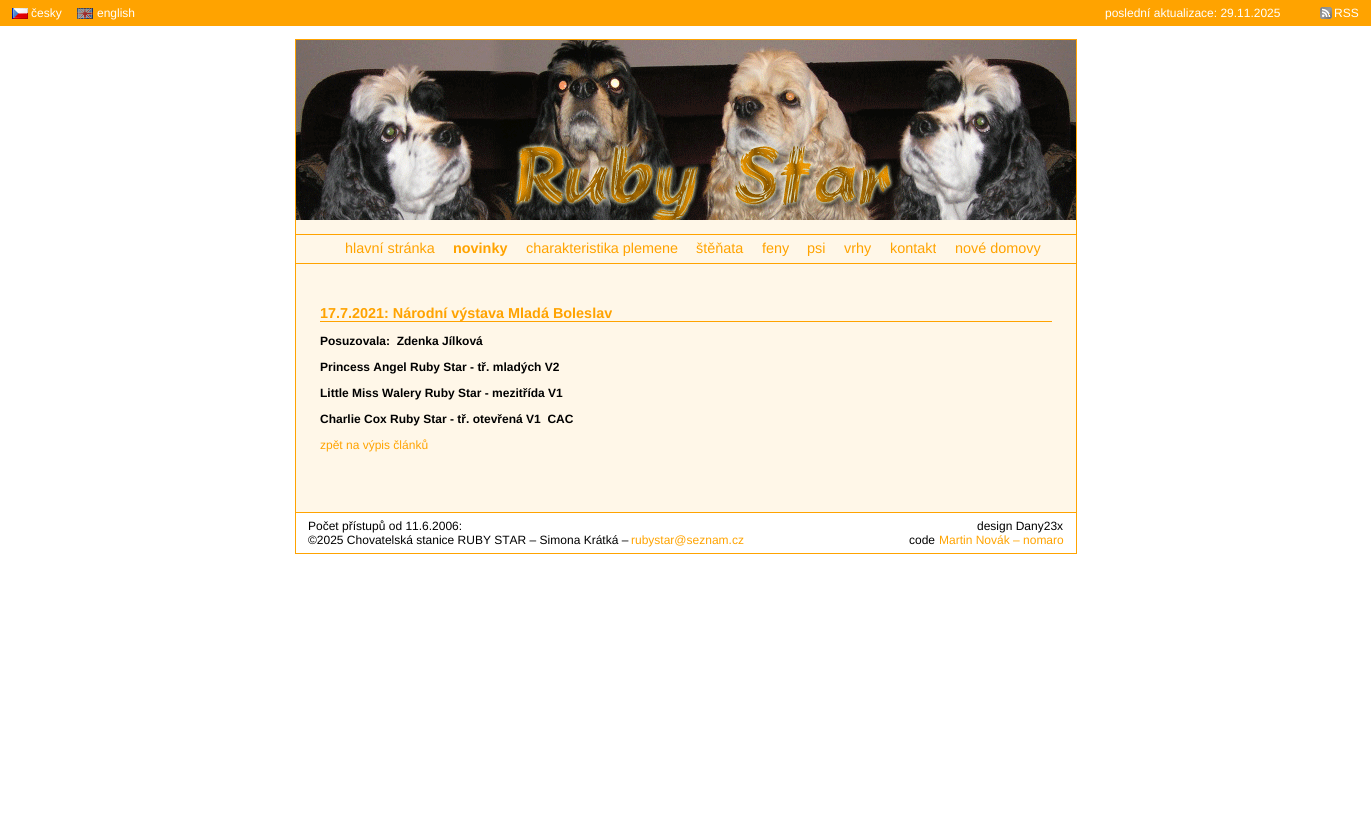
import math
import cairocffi as cairo

surface = cairo.ImageSurface(cairo.FORMAT_RGB24, 1371, 839)
cr = cairo.Context(surface)
options = cairo.FontOptions()
options.set_hint_metrics(cairo.HINT_METRICS_OFF)
options.set_hint_style(cairo.HINT_STYLE_NONE)
cr.set_font_options(options)
cr.set_miter_limit(4)


def use_color(code):
    cr.set_source_rgb(*(v / 255 for v in bytes.fromhex(code[-6:])))


def picture(path, x, y, w, h):
    cr.save()
    cr.set_source_surface(cairo.ImageSurface.create_from_png(path), x, y)
    cr.rectangle(x, y, w, h)
    cr.fill()
    cr.restore()


use_color("#ffffff")
cr.paint()
use_color("#ffa300")
cr.rectangle(0, 0, 1371, 26)
cr.fill()
picture("img1.png", 12, 8, 16, 11)
cr.select_font_face("Liberation Sans")
cr.set_font_size(12)
use_color("#ffffff")
cr.move_to(31, 17)
cr.show_text("česky")
picture("img2.png", 77, 8, 16, 11)
cr.move_to(97, 17)
cr.show_text("english")
cr.move_to(1105, 17)
cr.show_text("poslední aktualizace: 29.11.2025")
picture("img3.png", 1320, 7, 12, 12)
cr.move_to(1334, 17)
cr.show_text("RSS")
use_color("#fff7e8")
cr.rectangle(296, 220, 780, 292)
cr.fill()
cr.rectangle(295.5, 39.5, 781, 514)
use_color("#ffa300")
cr.set_line_width(1)
cr.stroke()
picture("img4.png", 296, 40, 780, 180)
cr.rectangle(296, 234, 780, 1)
cr.fill()
cr.rectangle(296, 263, 780, 1)
cr.fill()
cr.set_font_size(14.4)
cr.move_to(345, 253)
cr.show_text("hlavní stránka")
cr.select_font_face("Liberation Sans", cairo.FONT_SLANT_NORMAL, cairo.FONT_WEIGHT_BOLD)
cr.move_to(453, 253)
cr.show_text("novinky")
cr.select_font_face("Liberation Sans")
cr.move_to(526, 253)
cr.show_text("charakteristika plemene")
cr.move_to(696, 253)
cr.show_text("štěňata")
cr.move_to(762, 253)
cr.show_text("feny")
cr.move_to(807, 253)
cr.show_text("psi")
cr.move_to(844, 253)
cr.show_text("vrhy")
cr.move_to(890, 253)
cr.show_text("kontakt")
cr.move_to(955, 253)
cr.show_text("nové domovy")
cr.rectangle(320, 321, 732, 1)
cr.fill()
cr.select_font_face("Liberation Sans", cairo.FONT_SLANT_NORMAL, cairo.FONT_WEIGHT_BOLD)
cr.move_to(320, 318)
cr.show_text("17.7.2021: Národní výstava Mladá Boleslav")
cr.set_font_size(12)
use_color("#000000")
cr.move_to(320, 345)
cr.show_text("Posuzovala:  Zdenka Jílková")
cr.move_to(320, 371)
cr.show_text("Princess Angel Ruby Star - tř. mladých V2")
cr.move_to(320, 397)
cr.show_text("Little Miss Walery Ruby Star - mezitřída V1")
cr.move_to(320, 423)
cr.show_text("Charlie Cox Ruby Star - tř. otevřená V1  CAC")
cr.select_font_face("Liberation Sans")
use_color("#ffa300")
cr.move_to(320, 449)
cr.show_text("zpět na výpis článků")
cr.rectangle(296, 512, 780, 1)
cr.fill()
use_color("#000000")
cr.move_to(308, 530)
cr.show_text("Počet přístupů od 11.6.2006:")
cr.move_to(977, 530)
cr.show_text("design Dany23x")
cr.move_to(909, 544)
cr.show_text("code")
use_color("#ffa300")
cr.move_to(939, 544)
cr.show_text("Martin Novák – nomaro")
use_color("#000000")
cr.move_to(308, 544)
cr.show_text("©2025 Chovatelská stanice RUBY STAR – Simona Krátká –")
use_color("#ffa300")
cr.move_to(631, 544)
cr.show_text("rubystar@seznam.cz")
surface.write_to_png("result.png")
